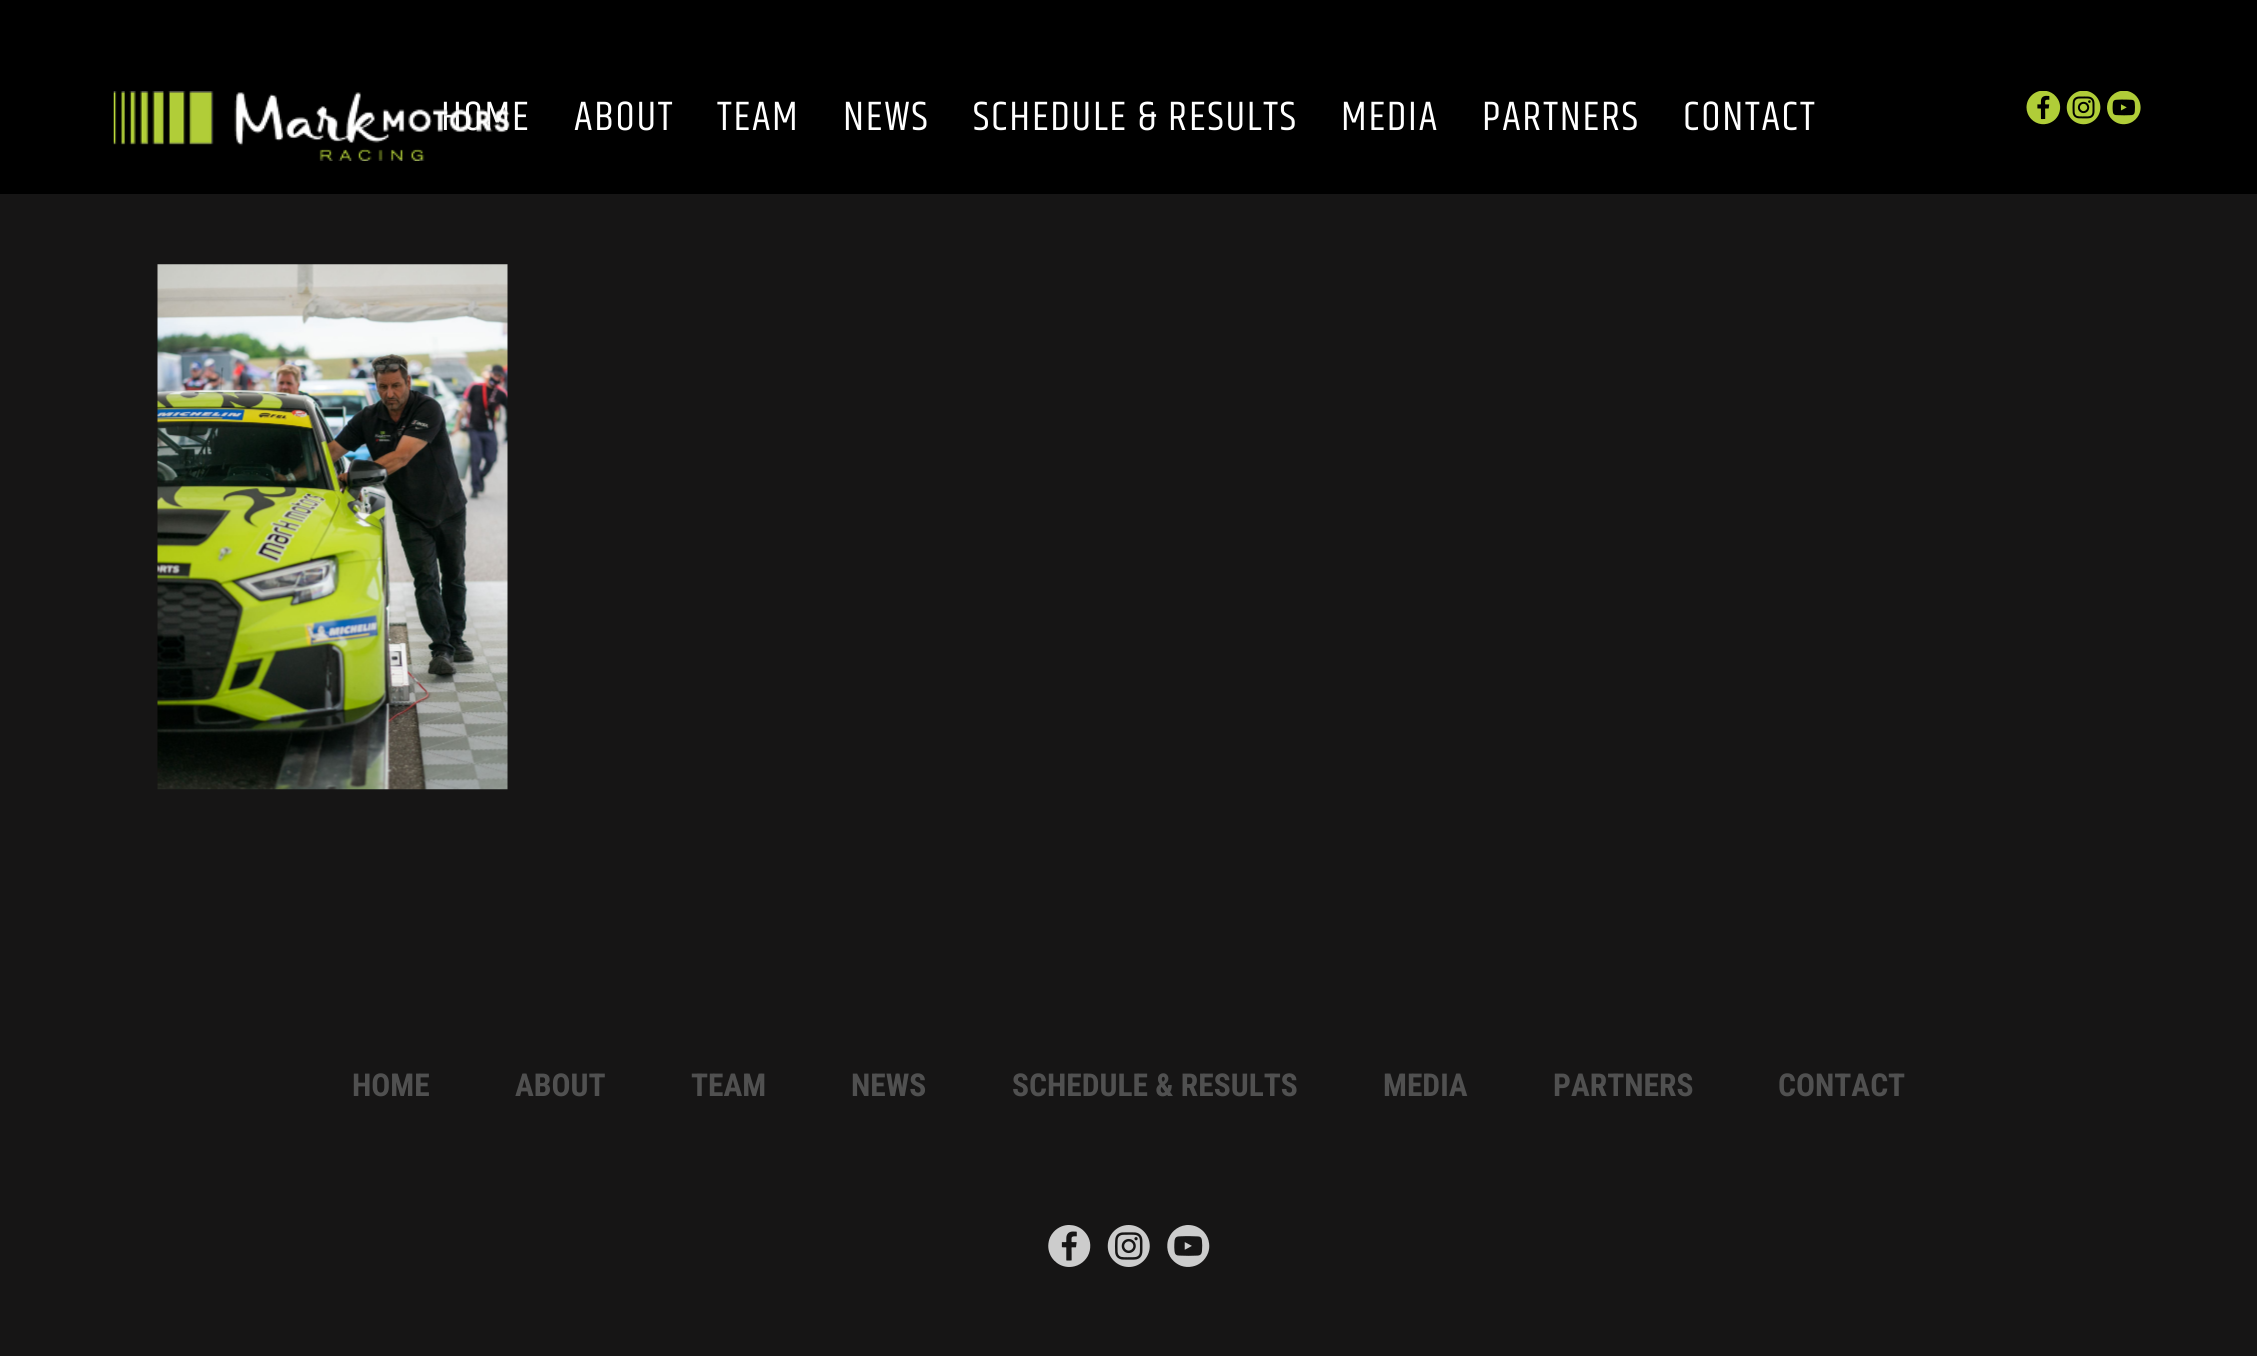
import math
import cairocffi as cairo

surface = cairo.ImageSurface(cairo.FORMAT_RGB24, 2257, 1356)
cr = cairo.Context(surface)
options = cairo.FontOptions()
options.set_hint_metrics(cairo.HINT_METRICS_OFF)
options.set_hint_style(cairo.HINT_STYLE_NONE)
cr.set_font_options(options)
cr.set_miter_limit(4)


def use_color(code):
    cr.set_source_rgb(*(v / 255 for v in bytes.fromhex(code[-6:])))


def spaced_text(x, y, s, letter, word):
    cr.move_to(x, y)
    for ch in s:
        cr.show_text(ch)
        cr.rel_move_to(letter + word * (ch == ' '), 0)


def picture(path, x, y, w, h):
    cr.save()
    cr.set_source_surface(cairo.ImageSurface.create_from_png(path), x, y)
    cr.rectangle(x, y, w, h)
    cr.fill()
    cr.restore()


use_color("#161515")
cr.paint()
use_color("#000000")
cr.rectangle(0, 0, 2257, 194)
cr.fill()
cr.select_font_face("Khand")
cr.set_font_size(42)
use_color("#ffffff")
spaced_text(441, 130, "HOME", 1.75, 0)
picture("img1.png", 113, 91, 397, 70)
spaced_text(574, 130, "ABOUT", 1.75, 0)
spaced_text(717, 130, "TEAM", 1.75, 0)
spaced_text(843, 130, "NEWS", 1.75, 0)
spaced_text(973, 130, "SCHEDULE & RESULTS", 1.75, 0)
spaced_text(1341, 130, "MEDIA", 1.75, 0)
spaced_text(1482, 130, "PARTNERS", 1.75, 0)
spaced_text(1683, 130, "CONTACT", 1.75, 0)
picture("img2.png", 2026, 91, 35, 34)
picture("img3.png", 2066, 91, 35, 34)
picture("img4.png", 2107, 91, 34, 34)
picture("img5.png", 157, 264, 351, 526)
cr.select_font_face("Roboto Condensed", cairo.FONT_SLANT_NORMAL, cairo.FONT_WEIGHT_BOLD)
cr.set_font_size(31.5)
use_color("#505050")
cr.move_to(352, 1096)
cr.show_text("HOME")
cr.move_to(515, 1096)
cr.show_text("ABOUT")
cr.move_to(691, 1096)
cr.show_text("TEAM")
cr.move_to(851, 1096)
cr.show_text("NEWS")
cr.move_to(1012, 1096)
cr.show_text("SCHEDULE & RESULTS")
cr.move_to(1383, 1096)
cr.show_text("MEDIA")
cr.move_to(1553, 1096)
cr.show_text("PARTNERS")
cr.move_to(1778, 1096)
cr.show_text("CONTACT")
picture("img6.png", 1048, 1225, 43, 42)
picture("img7.png", 1107, 1225, 43, 42)
picture("img8.png", 1167, 1225, 43, 42)
surface.write_to_png("result.png")
